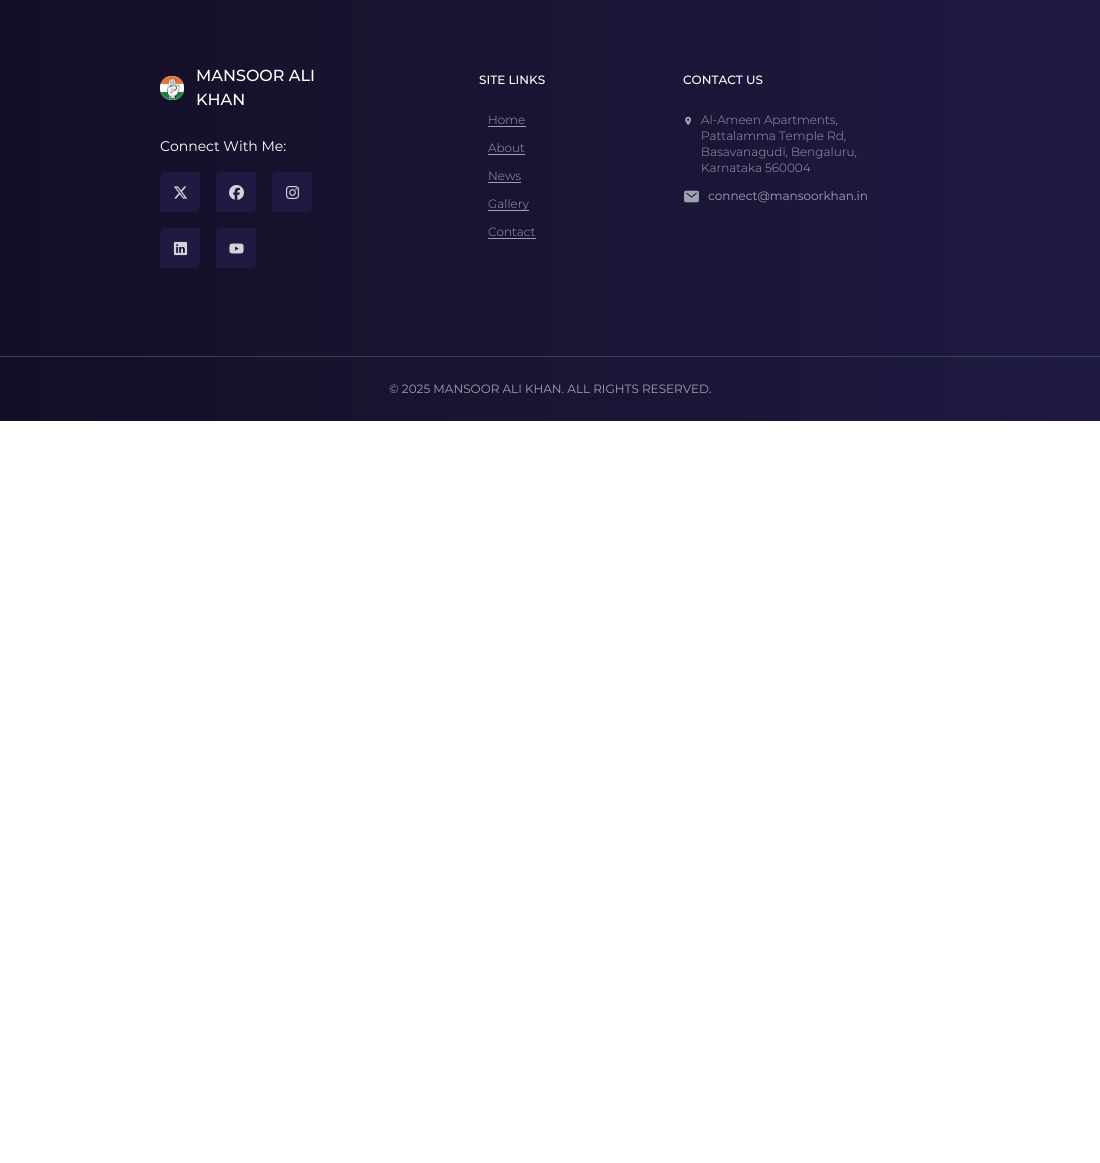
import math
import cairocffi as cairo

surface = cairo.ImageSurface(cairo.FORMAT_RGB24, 1100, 1163)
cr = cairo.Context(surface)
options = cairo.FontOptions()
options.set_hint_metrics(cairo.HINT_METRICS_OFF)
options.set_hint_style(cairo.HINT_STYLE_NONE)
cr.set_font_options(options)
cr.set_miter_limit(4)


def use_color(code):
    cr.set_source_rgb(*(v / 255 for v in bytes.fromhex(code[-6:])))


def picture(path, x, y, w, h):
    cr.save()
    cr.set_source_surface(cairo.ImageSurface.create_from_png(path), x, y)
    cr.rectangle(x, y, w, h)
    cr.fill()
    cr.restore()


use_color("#ffffff")
cr.paint()
gradient = cairo.LinearGradient(0, 211, 1100, 210)
gradient.add_color_stop_rgba(0, 0.078, 0.059, 0.149, 1)
gradient.add_color_stop_rgba(1, 0.122, 0.102, 0.259, 1)
cr.set_source(gradient)
cr.rectangle(0, 0, 1100, 421)
cr.fill()
picture("img1.png", 160, 76, 24, 24)
cr.select_font_face("Montserrat Medium")
cr.set_font_size(16)
use_color("#ffffff")
cr.move_to(196, 81)
cr.show_text("MANSOOR ALI")
cr.move_to(196, 105)
cr.show_text("KHAN")
cr.select_font_face("Montserrat")
cr.set_font_size(14)
cr.move_to(160, 151)
cr.show_text("Connect With Me:")
use_color("#1f1a42")
cr.new_path()
cr.move_to(166, 172)
cr.line_to(200, 172)
cr.line_to(200, 206)
cr.curve_to(200, 209.5, 197.5, 212, 194, 212)
cr.line_to(160, 212)
cr.line_to(160, 178)
cr.curve_to(160, 174.5, 162.5, 172, 166, 172)
cr.close_path()
cr.fill()
picture("img2.png", 173, 186, 15, 13)
cr.new_path()
cr.move_to(222, 172)
cr.line_to(256, 172)
cr.line_to(256, 206)
cr.curve_to(256, 209.5, 253.5, 212, 250, 212)
cr.line_to(216, 212)
cr.line_to(216, 178)
cr.curve_to(216, 174.5, 218.5, 172, 222, 172)
cr.close_path()
cr.fill()
picture("img3.png", 229, 185, 15, 15)
cr.new_path()
cr.move_to(278, 172)
cr.line_to(312, 172)
cr.line_to(312, 206)
cr.curve_to(312, 209.5, 309.5, 212, 306, 212)
cr.line_to(272, 212)
cr.line_to(272, 178)
cr.curve_to(272, 174.5, 274.5, 172, 278, 172)
cr.close_path()
cr.fill()
picture("img4.png", 286, 186, 14, 13)
cr.new_path()
cr.move_to(166, 228)
cr.line_to(200, 228)
cr.line_to(200, 262)
cr.curve_to(200, 265.5, 197.5, 268, 194, 268)
cr.line_to(160, 268)
cr.line_to(160, 234)
cr.curve_to(160, 230.5, 162.5, 228, 166, 228)
cr.close_path()
cr.fill()
picture("img5.png", 173, 241, 15, 15)
cr.new_path()
cr.move_to(222, 228)
cr.line_to(256, 228)
cr.line_to(256, 262)
cr.curve_to(256, 265.5, 253.5, 268, 250, 268)
cr.line_to(216, 268)
cr.line_to(216, 234)
cr.curve_to(216, 230.5, 218.5, 228, 222, 228)
cr.close_path()
cr.fill()
picture("img6.png", 229, 243, 15, 11)
cr.select_font_face("Montserrat Medium")
cr.set_font_size(12)
use_color("#ffffff")
cr.move_to(479, 84)
cr.show_text("SITE LINKS")
cr.select_font_face("Montserrat Light")
use_color("#9ca3af")
cr.move_to(488, 124)
cr.show_text("Home")
cr.rectangle(488, 126, 38, 1)
cr.fill()
cr.move_to(488, 152)
cr.show_text("About")
cr.rectangle(488, 154, 37, 1)
cr.fill()
cr.move_to(488, 180)
cr.show_text("News")
cr.rectangle(488, 182, 33, 1)
cr.fill()
cr.rectangle(488, 210, 41, 1)
cr.fill()
cr.move_to(488, 208)
cr.show_text("Gallery")
cr.move_to(488, 236)
cr.show_text("Contact")
cr.rectangle(488, 238, 48, 1)
cr.fill()
cr.select_font_face("Montserrat Medium")
use_color("#ffffff")
cr.move_to(683, 84)
cr.show_text("CONTACT US")
picture("img7.png", 685, 116, 7, 10)
cr.select_font_face("Montserrat Light")
use_color("#9ca3af")
cr.move_to(701, 124)
cr.show_text("Al-Ameen Apartments,")
cr.move_to(701, 140)
cr.show_text("Pattalamma Temple Rd,")
cr.move_to(701, 156)
cr.show_text("Basavanagudi, Bengaluru,")
cr.move_to(701, 172)
cr.show_text("Karnataka 560004")
picture("img8.png", 684, 190, 15, 13)
cr.select_font_face("Montserrat")
cr.move_to(708, 200)
cr.show_text("connect@mansoorkhan.in")
use_color("#374151")
cr.rectangle(0, 356, 1100, 1)
cr.fill()
use_color("#9ca3af")
cr.move_to(389, 393)
cr.show_text("© 2025 MANSOOR ALI KHAN. ALL RIGHTS RESERVED.")
surface.write_to_png("result.png")
